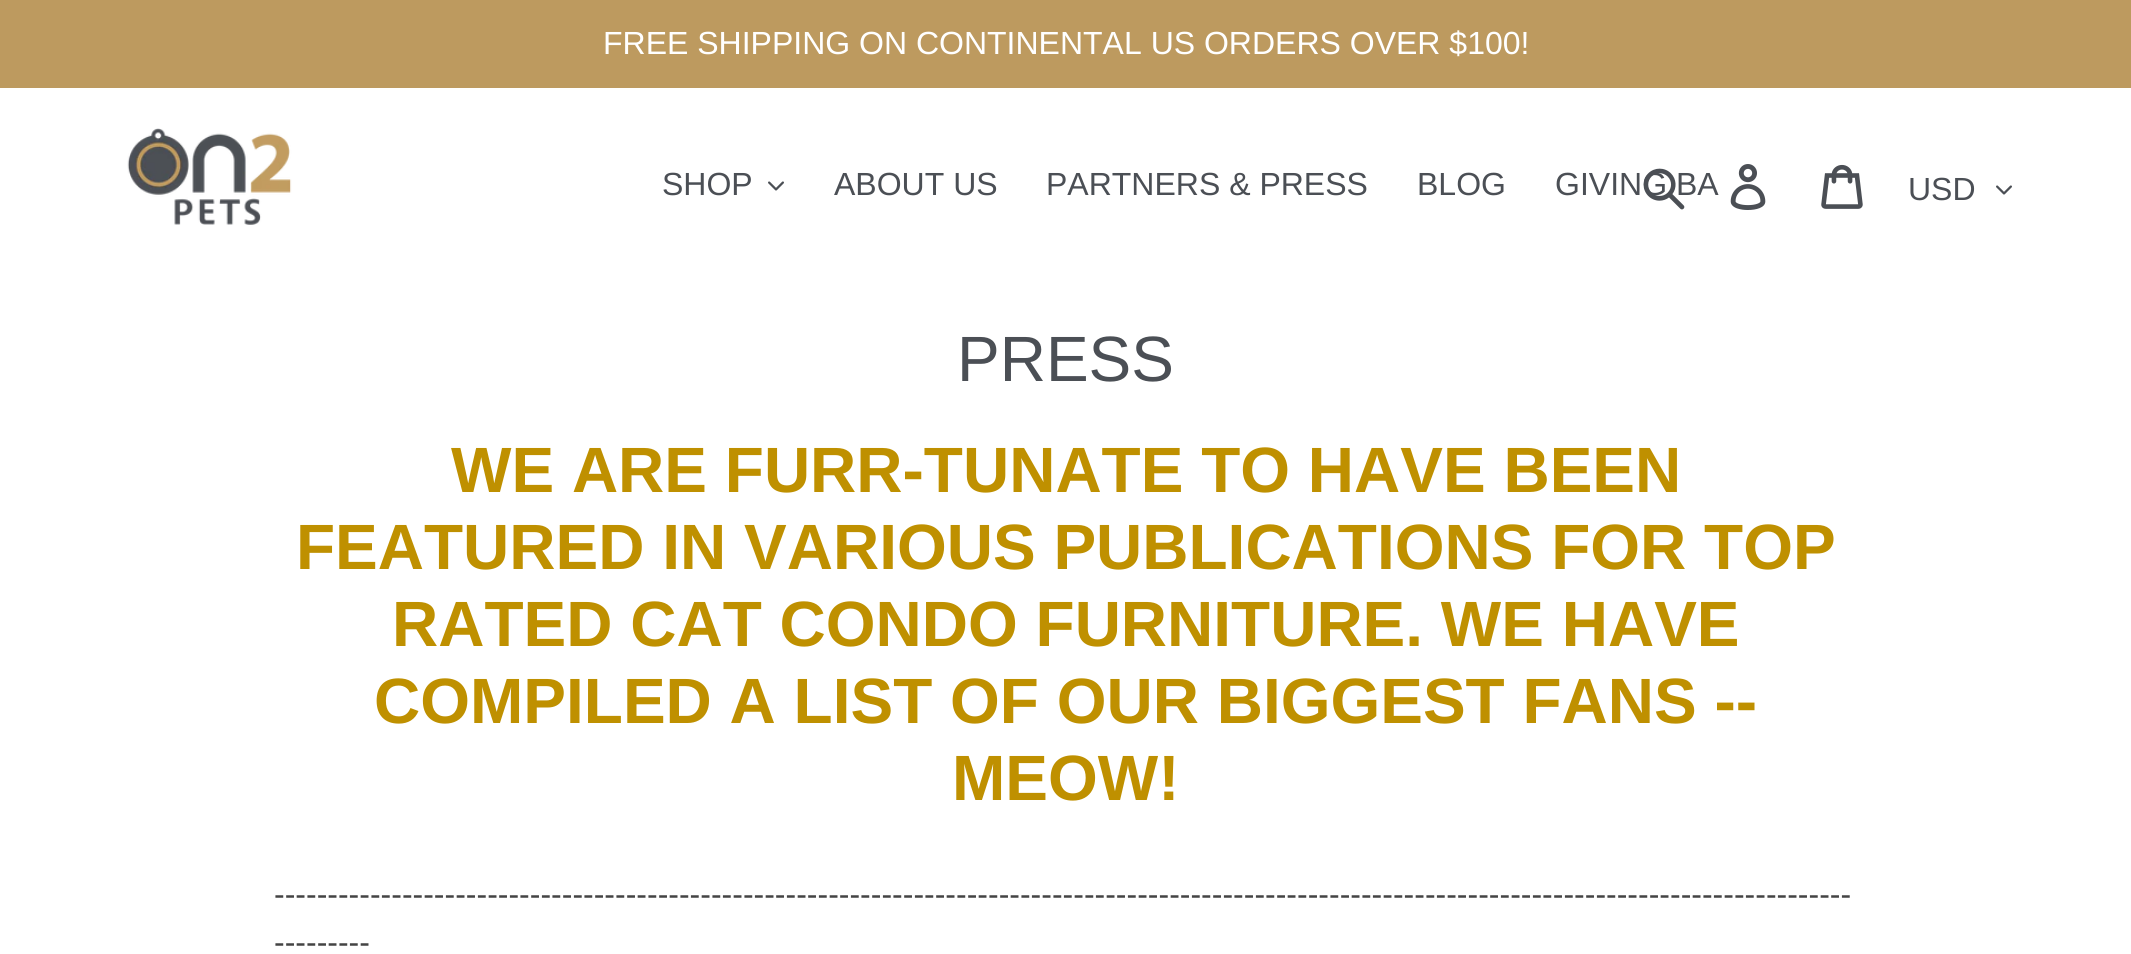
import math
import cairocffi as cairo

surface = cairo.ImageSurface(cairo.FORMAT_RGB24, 2131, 954)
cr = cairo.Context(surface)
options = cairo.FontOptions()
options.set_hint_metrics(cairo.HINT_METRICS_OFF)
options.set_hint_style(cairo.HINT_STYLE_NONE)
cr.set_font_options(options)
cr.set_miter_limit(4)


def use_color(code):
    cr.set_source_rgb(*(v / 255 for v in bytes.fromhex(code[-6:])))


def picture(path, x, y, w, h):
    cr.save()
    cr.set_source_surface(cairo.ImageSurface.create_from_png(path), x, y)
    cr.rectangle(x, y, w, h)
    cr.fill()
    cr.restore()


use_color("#ffffff")
cr.paint()
use_color("#bd9a5f")
cr.rectangle(0, 0, 2131, 88)
cr.fill()
cr.select_font_face("Liberation Sans")
cr.set_font_size(32)
use_color("#ffffff")
cr.move_to(603, 54)
cr.show_text("FREE SHIPPING ON CONTINENTAL US ORDERS OVER $100!")
picture("img1.png", 127, 128, 165, 97)
use_color("#4b4f55")
cr.move_to(662, 195)
cr.show_text("SHOP")
picture("img2.png", 768, 181, 16, 10)
cr.move_to(834, 195)
cr.show_text("ABOUT US")
cr.move_to(1046, 195)
cr.show_text("PARTNERS & PRESS")
cr.move_to(1417, 195)
cr.show_text("BLOG")
cr.move_to(1555, 195)
cr.show_text("GIVING BA")
picture("img3.png", 1643, 168, 42, 42)
picture("img4.png", 1730, 164, 36, 46)
picture("img5.png", 1821, 164, 42, 45)
cr.move_to(1908, 200)
cr.show_text("USD")
picture("img2.png", 1996, 185, 16, 10)
cr.set_font_size(64)
cr.move_to(957, 381)
cr.show_text("PRESS")
cr.select_font_face("Liberation Sans", cairo.FONT_SLANT_NORMAL, cairo.FONT_WEIGHT_BOLD)
use_color("#bf9000")
cr.move_to(451, 492)
cr.show_text("WE ARE FURR-TUNATE TO HAVE BEEN")
cr.move_to(296, 569)
cr.show_text("FEATURED IN VARIOUS PUBLICATIONS FOR TOP")
cr.move_to(392, 646)
cr.show_text("RATED CAT CONDO FURNITURE. WE HAVE")
cr.move_to(374, 723)
cr.show_text("COMPILED A LIST OF OUR BIGGEST FANS --")
cr.move_to(952, 800)
cr.show_text("MEOW!")
cr.select_font_face("Liberation Sans")
cr.set_font_size(32)
use_color("#444444")
cr.move_to(274, 905)
cr.show_text("----------------------------------------------------------------------------------------------------------------------------------------------------")
cr.move_to(274, 953)
cr.show_text("---------")
surface.write_to_png("result.png")
